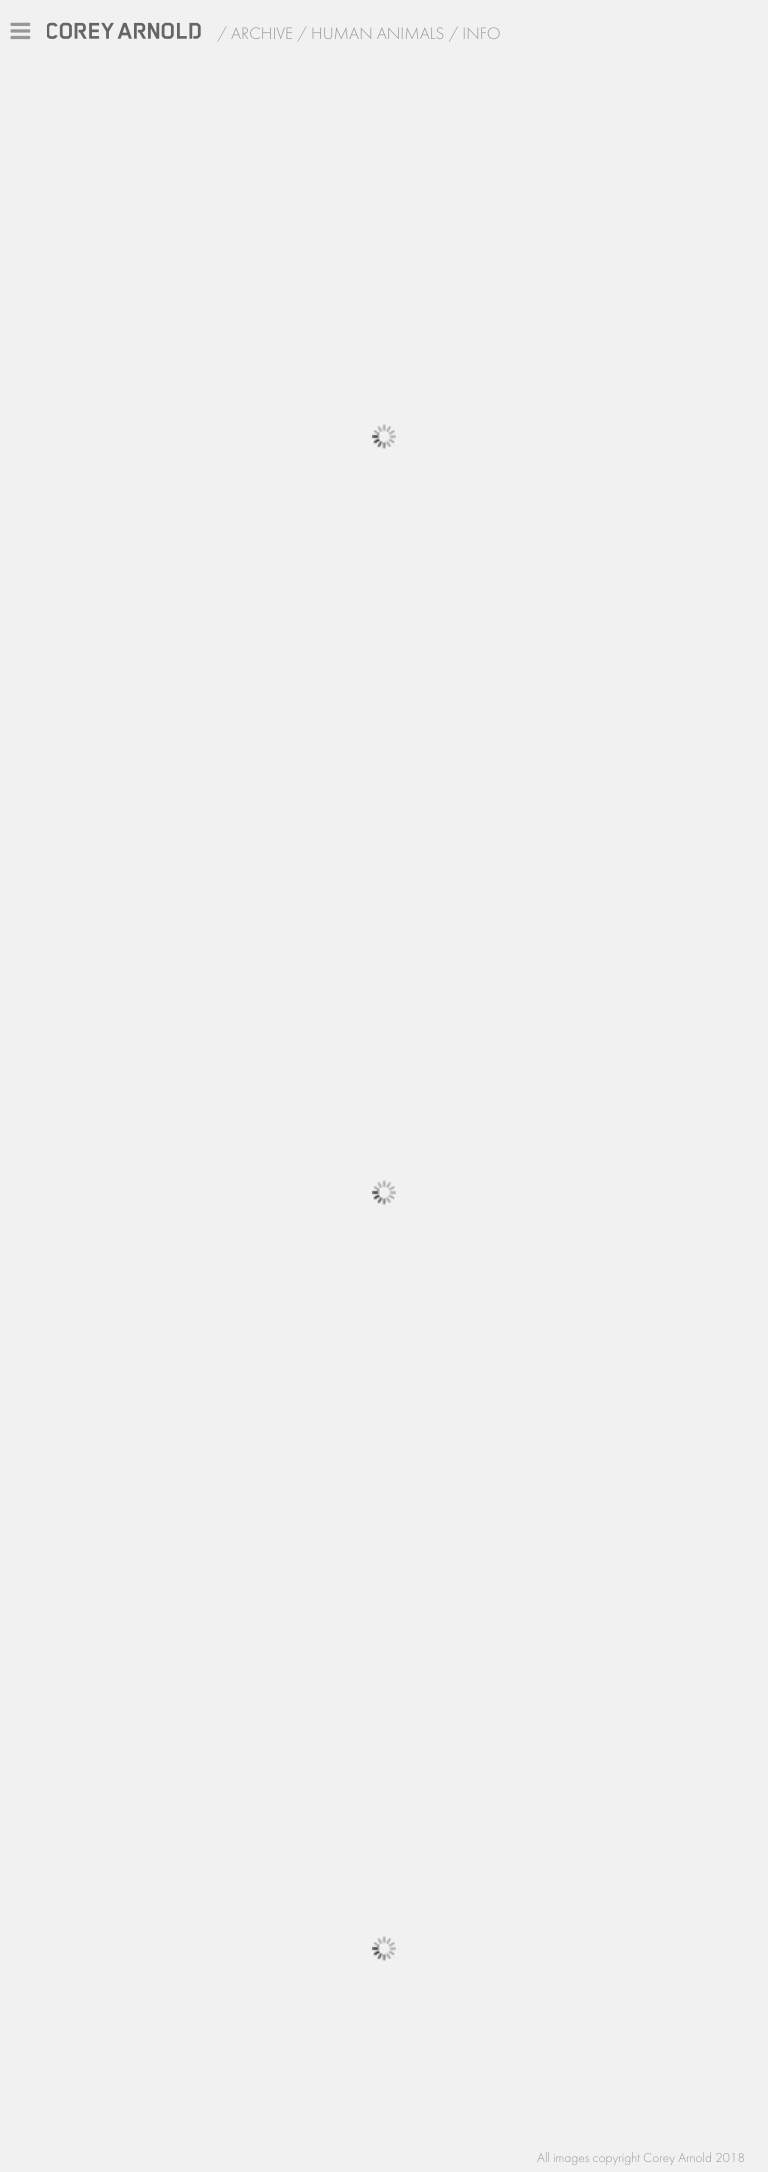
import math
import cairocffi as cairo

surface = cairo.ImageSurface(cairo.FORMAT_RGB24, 768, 2172)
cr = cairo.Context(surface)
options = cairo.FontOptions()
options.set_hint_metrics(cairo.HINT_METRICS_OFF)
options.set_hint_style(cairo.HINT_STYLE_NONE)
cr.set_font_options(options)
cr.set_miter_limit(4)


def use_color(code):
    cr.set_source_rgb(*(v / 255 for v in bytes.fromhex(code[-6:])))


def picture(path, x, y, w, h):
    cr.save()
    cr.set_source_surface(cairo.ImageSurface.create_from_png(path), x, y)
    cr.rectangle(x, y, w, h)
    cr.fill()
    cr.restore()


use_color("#f1f1f1")
cr.paint()
picture("img1.png", 10, 22, 21, 18)
picture("img2.png", 47, 22, 154, 17)
cr.select_font_face("Futura PT Light")
cr.set_font_size(17.25)
use_color("#979797")
cr.move_to(217, 39)
cr.show_text("/ ARCHIVE / HUMAN ANIMALS / INFO")
picture("img3.png", 372, 424, 24, 25)
picture("img3.png", 372, 1180, 24, 25)
picture("img3.png", 372, 1936, 24, 25)
cr.set_font_size(13.5)
cr.move_to(537, 2162)
cr.show_text("All images copyright Corey Arnold 2018")
surface.write_to_png("result.png")
